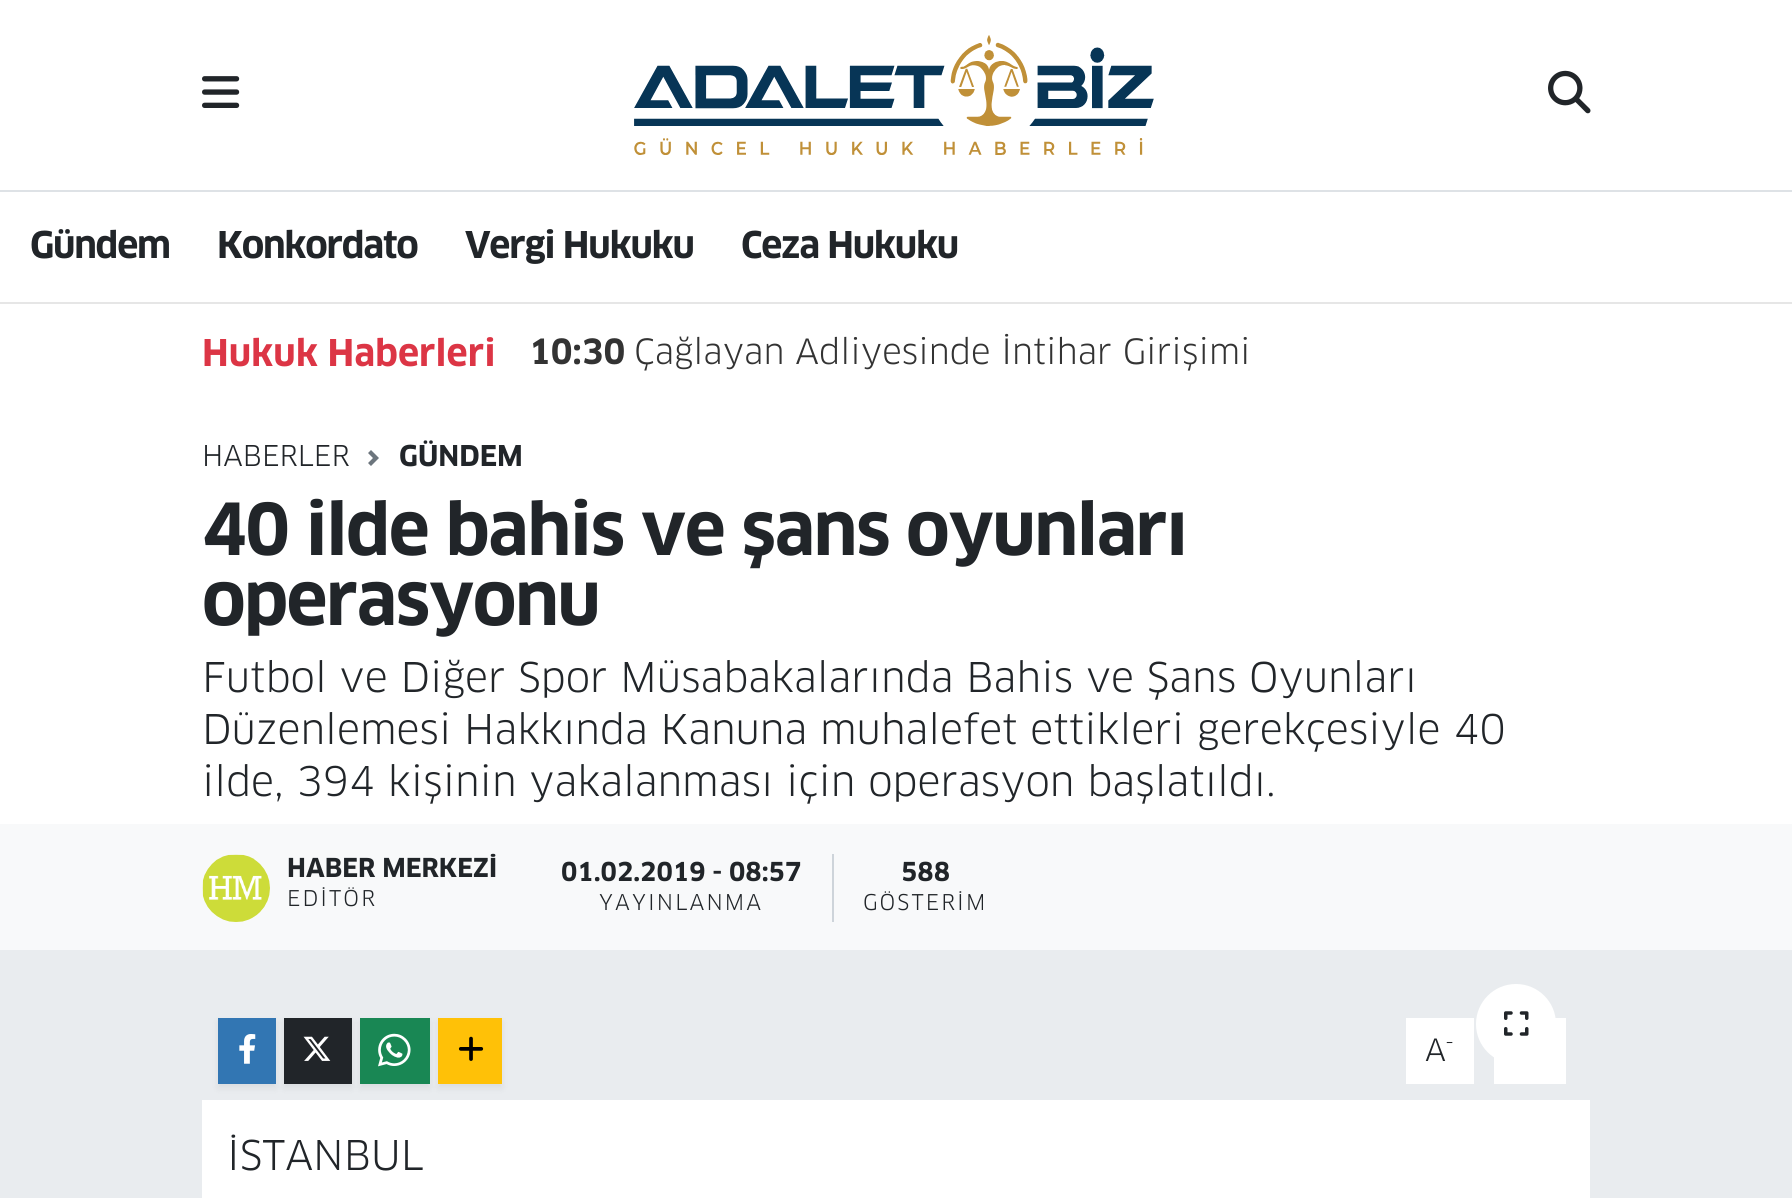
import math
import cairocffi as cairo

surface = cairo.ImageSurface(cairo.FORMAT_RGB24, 1792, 1198)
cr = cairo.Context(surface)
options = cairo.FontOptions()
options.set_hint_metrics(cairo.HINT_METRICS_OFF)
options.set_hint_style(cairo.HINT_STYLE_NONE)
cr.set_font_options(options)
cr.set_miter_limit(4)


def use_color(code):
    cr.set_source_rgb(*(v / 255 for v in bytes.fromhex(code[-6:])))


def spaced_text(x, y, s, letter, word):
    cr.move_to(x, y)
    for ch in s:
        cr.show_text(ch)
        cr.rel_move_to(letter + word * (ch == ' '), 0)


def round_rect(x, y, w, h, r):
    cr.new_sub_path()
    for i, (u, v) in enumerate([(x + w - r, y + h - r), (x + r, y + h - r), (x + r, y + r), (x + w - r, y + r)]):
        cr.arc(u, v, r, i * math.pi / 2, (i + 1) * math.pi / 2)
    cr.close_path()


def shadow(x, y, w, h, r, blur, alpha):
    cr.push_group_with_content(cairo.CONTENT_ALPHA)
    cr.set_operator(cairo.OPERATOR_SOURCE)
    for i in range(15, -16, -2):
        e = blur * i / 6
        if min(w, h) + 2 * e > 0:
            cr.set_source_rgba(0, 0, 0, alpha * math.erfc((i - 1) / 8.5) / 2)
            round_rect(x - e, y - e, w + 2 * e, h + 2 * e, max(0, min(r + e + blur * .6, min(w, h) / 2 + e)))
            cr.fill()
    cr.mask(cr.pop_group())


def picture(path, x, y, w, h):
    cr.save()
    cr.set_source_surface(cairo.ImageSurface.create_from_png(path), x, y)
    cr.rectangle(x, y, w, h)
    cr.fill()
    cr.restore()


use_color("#e9ecef")
cr.paint()
use_color("#ffffff")
cr.rectangle(0, 0, 1792, 190)
cr.fill()
use_color("#dee2e6")
cr.rectangle(0, 190, 1792, 2)
cr.fill()
picture("img1.png", 202, 76, 38, 32)
picture("img2.png", 634, 35, 520, 120)
picture("img3.png", 1548, 70, 43, 44)
use_color("#ffffff")
cr.rectangle(0, 192, 1792, 110)
cr.fill()
use_color("#e6e6e6")
cr.rectangle(0, 302, 1792, 2)
cr.fill()
cr.select_font_face("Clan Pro", cairo.FONT_SLANT_NORMAL, cairo.FONT_WEIGHT_BOLD)
cr.set_font_size(36)
use_color("#212529")
spaced_text(30, 258, "Gündem", -1.25, 0)
spaced_text(217, 258, "Konkordato", -1.25, 0)
spaced_text(465, 258, "Vergi Hukuku", -1.25, 0)
spaced_text(741, 258, "Ceza Hukuku", -1.25, 0)
use_color("#ffffff")
cr.rectangle(0, 304, 1792, 520)
cr.fill()
use_color("#dc3545")
cr.move_to(202, 366)
cr.show_text("Hukuk Haberleri")
cr.set_font_size(34)
use_color("#333333")
cr.move_to(529, 364)
cr.show_text("10:30")
cr.select_font_face("Clan Pro")
cr.move_to(634, 364)
cr.show_text("Çağlayan Adliyesinde İntihar Girişimi")
cr.set_font_size(28)
use_color("#212529")
cr.move_to(202, 466)
cr.show_text("HABERLER")
picture("img4.png", 368, 450, 11, 16)
cr.select_font_face("Clan Pro", cairo.FONT_SLANT_NORMAL, cairo.FONT_WEIGHT_BOLD)
cr.move_to(399, 466)
cr.show_text("GÜNDEM")
cr.set_font_size(70)
spaced_text(202, 555, "40 ilde bahis ve şans oyunları", -1.6, 0)
spaced_text(202, 625, "operasyonu", -1.6, 0)
cr.select_font_face("Clan Pro")
cr.set_font_size(40)
cr.move_to(202, 692)
cr.show_text("Futbol ve Diğer Spor Müsabakalarında Bahis ve Şans Oyunları")
cr.move_to(202, 744)
cr.show_text("Düzenlemesi Hakkında Kanuna muhalefet ettikleri gerekçesiyle 40")
cr.move_to(202, 796)
cr.show_text("ilde, 394 kişinin yakalanması için operasyon başlatıldı.")
use_color("#f8f9fa")
cr.rectangle(0, 824, 1792, 126)
cr.fill()
picture("img5.png", 202, 854, 68, 68)
cr.select_font_face("Clan Pro", cairo.FONT_SLANT_NORMAL, cairo.FONT_WEIGHT_BOLD)
cr.set_font_size(25.5)
use_color("#212529")
cr.move_to(287, 877)
cr.show_text("HABER MERKEZİ")
cr.select_font_face("Clan Pro")
cr.set_font_size(21.25)
spaced_text(287, 906, "EDİTÖR", 2.1, 0)
use_color("#ced4da")
cr.rectangle(832, 854, 2, 68)
cr.fill()
cr.select_font_face("Clan Pro", cairo.FONT_SLANT_NORMAL, cairo.FONT_WEIGHT_BOLD)
cr.set_font_size(25.5)
use_color("#212529")
cr.move_to(561, 881)
cr.show_text("01.02.2019 - 08:57")
cr.select_font_face("Clan Pro")
cr.set_font_size(21.25)
spaced_text(599, 910, "YAYINLANMA", 2.1, 0)
cr.select_font_face("Clan Pro", cairo.FONT_SLANT_NORMAL, cairo.FONT_WEIGHT_BOLD)
cr.set_font_size(25.5)
cr.move_to(901, 881)
cr.show_text("588")
cr.select_font_face("Clan Pro")
cr.set_font_size(21.25)
spaced_text(863, 910, "GÖSTERİM", 2.1, 0)
use_color("#000000")
shadow(218, 1022, 58, 66, 0, 4, 0.07)
use_color("#3276b3")
cr.rectangle(218, 1018, 58, 66)
cr.fill()
picture("img6.png", 239, 1034, 17, 30)
use_color("#000000")
shadow(284, 1022, 68, 66, 0, 4, 0.07)
use_color("#212529")
cr.rectangle(284, 1018, 68, 66)
cr.fill()
picture("img7.png", 303, 1036, 28, 25)
use_color("#000000")
shadow(360, 1022, 70, 66, 0, 4, 0.07)
use_color("#198754")
cr.rectangle(360, 1018, 70, 66)
cr.fill()
picture("img8.png", 378, 1033, 33, 34)
use_color("#000000")
shadow(438, 1022, 64, 66, 0, 4, 0.07)
use_color("#ffc107")
cr.rectangle(438, 1018, 64, 66)
cr.fill()
picture("img9.png", 458, 1036, 26, 25)
use_color("#ffffff")
cr.rectangle(1406, 1018, 68, 66)
cr.fill()
cr.set_font_size(30)
use_color("#212529")
cr.move_to(1425, 1061)
cr.show_text("A")
cr.set_font_size(22)
cr.move_to(1445, 1050)
cr.show_text("-")
use_color("#ffffff")
cr.rectangle(1494, 1018, 72, 66)
cr.fill()
cr.arc(1516, 1024, 40, 0, 2 * math.pi)
cr.fill()
picture("img10.png", 1504, 1011, 25, 25)
cr.rectangle(202, 1100, 1388, 98)
cr.fill()
cr.set_font_size(40)
use_color("#212529")
cr.move_to(227, 1170)
cr.show_text("İSTANBUL")
surface.write_to_png("result.png")
